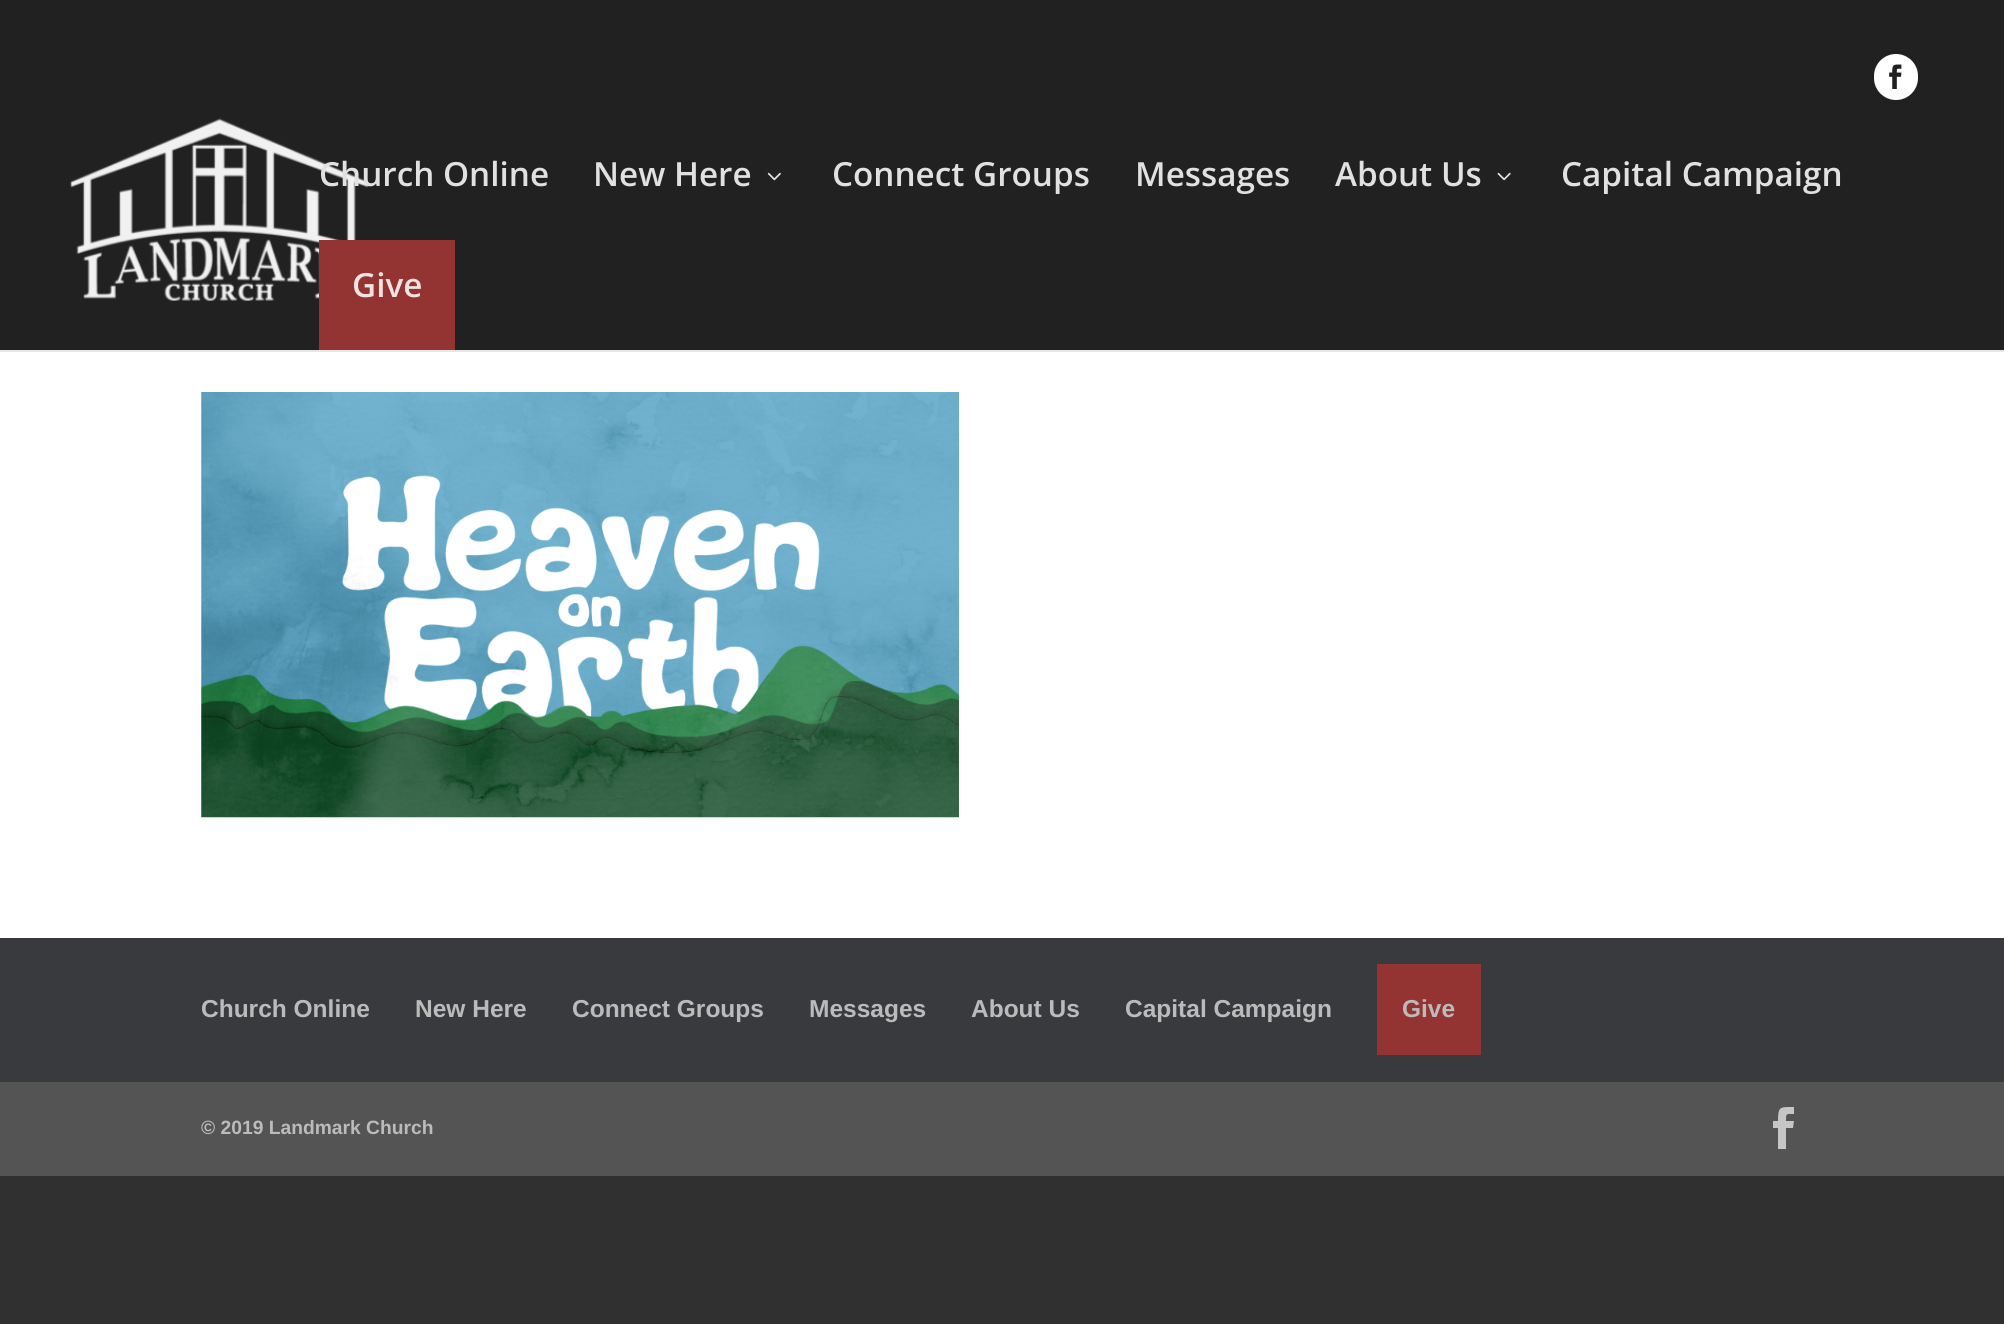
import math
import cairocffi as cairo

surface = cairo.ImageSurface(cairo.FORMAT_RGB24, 2004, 1324)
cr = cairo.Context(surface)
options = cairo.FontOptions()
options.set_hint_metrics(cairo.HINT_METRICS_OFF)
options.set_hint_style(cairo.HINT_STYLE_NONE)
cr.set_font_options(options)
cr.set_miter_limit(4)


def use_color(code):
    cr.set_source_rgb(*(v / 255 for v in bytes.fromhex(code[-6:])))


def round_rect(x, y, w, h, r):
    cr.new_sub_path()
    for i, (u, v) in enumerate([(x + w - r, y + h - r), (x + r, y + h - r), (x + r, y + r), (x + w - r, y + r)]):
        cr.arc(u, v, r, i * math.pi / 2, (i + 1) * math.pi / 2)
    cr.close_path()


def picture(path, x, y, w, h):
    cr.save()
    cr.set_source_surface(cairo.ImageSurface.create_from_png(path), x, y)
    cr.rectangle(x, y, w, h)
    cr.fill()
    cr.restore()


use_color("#303030")
cr.paint()
use_color("#212121")
cr.rectangle(0, 0, 2004, 350)
cr.fill()
use_color("#ffffff")
round_rect(1874, 54, 44, 46, 22)
cr.fill()
picture("img1.png", 1889, 64, 13, 25)
use_color("#e6e6e6")
cr.new_path()
cr.move_to(0, 350)
cr.line_to(0, 352)
cr.line_to(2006, 352)
cr.line_to(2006, 112)
cr.line_to(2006, 350)
cr.close_path()
cr.fill()
picture("img2.png", 70, 118, 299, 183)
cr.select_font_face("Open Sans SemiBold")
cr.set_font_size(33.25)
use_color("#e1e1e1")
cr.move_to(319, 186)
cr.show_text("Church Online")
cr.move_to(593, 186)
cr.show_text("New Here")
picture("img3.png", 767, 172, 14, 9)
cr.move_to(832, 186)
cr.show_text("Connect Groups")
cr.move_to(1135, 186)
cr.show_text("Messages")
cr.move_to(1335, 186)
cr.show_text("About Us")
picture("img4.png", 1497, 172, 14, 9)
cr.move_to(1561, 186)
cr.show_text("Capital Campaign")
use_color("#943432")
cr.rectangle(319, 240, 136, 110)
cr.fill()
use_color("#f0e3e2")
cr.move_to(352, 297)
cr.show_text("Give")
use_color("#ffffff")
cr.rectangle(0, 352, 2004, 586)
cr.fill()
picture("img5.png", 201, 392, 758, 426)
use_color("#383a3d")
cr.rectangle(0, 938, 2004, 144)
cr.fill()
cr.select_font_face("Liberation Sans", cairo.FONT_SLANT_NORMAL, cairo.FONT_WEIGHT_BOLD)
cr.set_font_size(24.5)
use_color("#bbbbbb")
cr.move_to(201, 1017)
cr.show_text("Church Online")
cr.move_to(415, 1017)
cr.show_text("New Here")
cr.move_to(572, 1017)
cr.show_text("Connect Groups")
cr.move_to(809, 1017)
cr.show_text("Messages")
cr.move_to(971, 1017)
cr.show_text("About Us")
cr.move_to(1125, 1017)
cr.show_text("Capital Campaign")
use_color("#943432")
cr.rectangle(1377, 964, 104, 91)
cr.fill()
use_color("#bbbbbb")
cr.move_to(1402, 1017)
cr.show_text("Give")
use_color("#545454")
cr.rectangle(0, 1082, 2004, 94)
cr.fill()
cr.set_font_size(19.25)
use_color("#bbbbbb")
cr.move_to(201, 1134)
cr.show_text("© 2019 Landmark Church")
use_color("#c6c6c6")
cr.new_path()
cr.move_to(1778, 1149)
cr.line_to(1786, 1149)
cr.line_to(1786, 1128)
cr.line_to(1793, 1128)
cr.line_to(1794, 1121)
cr.line_to(1786, 1121)
cr.curve_to(1786, 1113, 1786, 1114, 1794, 1114)
cr.line_to(1794, 1107)
cr.curve_to(1780, 1107, 1778, 1106, 1778, 1121)
cr.line_to(1773, 1121)
cr.line_to(1773, 1128)
cr.line_to(1778, 1128)
cr.close_path()
cr.fill()
surface.write_to_png("result.png")
